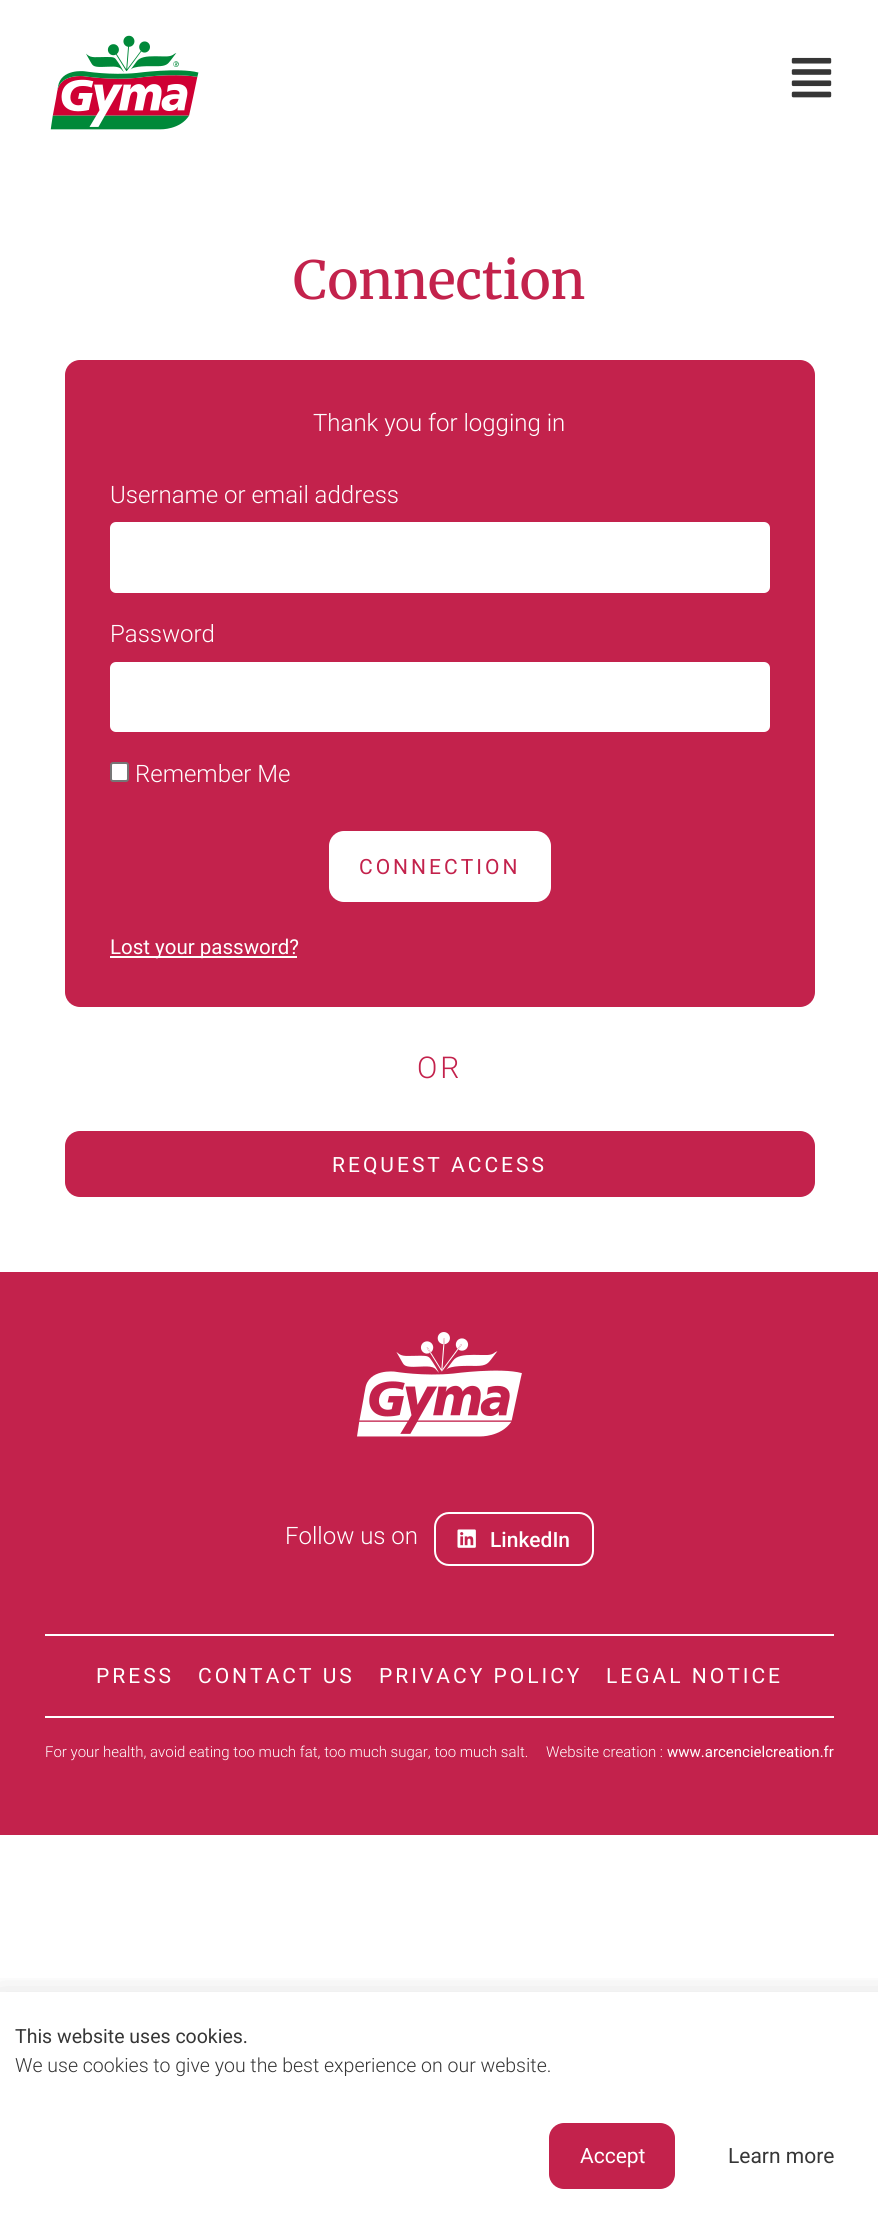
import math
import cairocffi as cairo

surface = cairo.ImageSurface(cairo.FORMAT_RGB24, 878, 2218)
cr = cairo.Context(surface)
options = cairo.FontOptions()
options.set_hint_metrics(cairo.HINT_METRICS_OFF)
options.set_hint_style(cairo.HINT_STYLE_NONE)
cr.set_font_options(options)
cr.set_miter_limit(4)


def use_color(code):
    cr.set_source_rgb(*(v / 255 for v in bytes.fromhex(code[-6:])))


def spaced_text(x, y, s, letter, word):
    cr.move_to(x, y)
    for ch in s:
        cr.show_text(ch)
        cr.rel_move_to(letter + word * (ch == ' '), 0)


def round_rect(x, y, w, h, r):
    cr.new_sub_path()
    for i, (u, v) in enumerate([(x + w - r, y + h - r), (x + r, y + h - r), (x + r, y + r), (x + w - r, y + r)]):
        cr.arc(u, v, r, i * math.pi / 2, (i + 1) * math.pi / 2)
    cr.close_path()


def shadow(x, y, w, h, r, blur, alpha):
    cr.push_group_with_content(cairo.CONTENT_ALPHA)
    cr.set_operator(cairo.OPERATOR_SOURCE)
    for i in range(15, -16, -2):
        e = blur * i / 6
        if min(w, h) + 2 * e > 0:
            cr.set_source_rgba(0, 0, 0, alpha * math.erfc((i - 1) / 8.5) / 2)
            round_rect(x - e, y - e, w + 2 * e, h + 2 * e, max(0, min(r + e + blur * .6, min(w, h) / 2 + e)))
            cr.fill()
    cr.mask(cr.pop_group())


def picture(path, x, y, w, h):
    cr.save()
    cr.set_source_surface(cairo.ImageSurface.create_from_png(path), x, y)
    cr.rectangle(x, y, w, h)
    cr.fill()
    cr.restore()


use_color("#ffffff")
cr.paint()
picture("img1.png", 50, 35, 149, 95)
picture("img2.png", 791, 57, 41, 41)
cr.select_font_face("Merriweather Medium")
cr.set_font_size(52.5)
use_color("#c3224c")
cr.move_to(293, 299)
cr.show_text("Connection")
round_rect(65, 360, 750, 647, 15)
cr.fill()
cr.select_font_face("Roboto Light")
cr.set_font_size(24)
use_color("#ffffff")
cr.move_to(313, 431)
cr.show_text("Thank you for logging in")
cr.move_to(110, 503)
cr.show_text("Username or email address")
round_rect(110, 522, 660, 71, 6)
cr.fill()
cr.move_to(110, 642)
cr.show_text("Password")
round_rect(110, 662, 660, 70, 6)
cr.fill()
round_rect(111, 763, 17, 18, 2)
cr.fill_preserve()
use_color("#767676")
cr.stroke()
use_color("#ffffff")
cr.move_to(135, 782)
cr.show_text("Remember Me")
round_rect(329, 831, 222, 71, 15)
cr.fill()
cr.select_font_face("Roboto")
cr.set_font_size(21)
use_color("#c3224c")
spaced_text(359, 874, "CONNECTION", 3, 0)
use_color("#ffffff")
cr.rectangle(110, 956, 187, 2)
cr.fill()
cr.set_font_size(20.5)
cr.move_to(110, 954)
cr.show_text("Lost your password?")
cr.select_font_face("Roboto Light")
cr.set_font_size(30)
use_color("#c3224c")
spaced_text(417, 1078, "OR", 3, 0)
round_rect(65, 1131, 750, 66, 15)
cr.fill()
cr.select_font_face("Roboto")
cr.set_font_size(21)
use_color("#ffffff")
spaced_text(332, 1172, "REQUEST ACCESS", 3, 0)
use_color("#c3224c")
cr.rectangle(0, 1272, 878, 563)
cr.fill()
picture("img3.png", 357, 1332, 165, 105)
cr.select_font_face("Roboto Light")
cr.set_font_size(24)
use_color("#ffffff")
cr.move_to(285, 1544)
cr.show_text("Follow us on")
round_rect(435, 1513, 158, 52, 14)
cr.stroke()
picture("img4.png", 457, 1529, 19, 19)
cr.select_font_face("Roboto Medium")
cr.set_font_size(21)
cr.move_to(490, 1547)
cr.show_text("LinkedIn")
cr.rectangle(45, 1634, 789, 2)
cr.fill()
cr.select_font_face("Roboto")
spaced_text(96, 1683, "PRESS", 3, 0)
spaced_text(198, 1683, "CONTACT US", 3, 0)
spaced_text(379, 1683, "PRIVACY POLICY", 3, 0)
spaced_text(606, 1683, "LEGAL NOTICE", 3, 0)
cr.rectangle(45, 1716, 789, 2)
cr.fill()
cr.select_font_face("Roboto Light")
cr.set_font_size(15)
cr.move_to(45, 1757)
cr.show_text("For your health, avoid eating too much fat, too much sugar, too much salt.")
cr.move_to(546, 1757)
cr.show_text("Website creation :")
cr.select_font_face("Roboto")
cr.move_to(667, 1757)
cr.show_text("www.arcencielcreation.fr")
cr.save()
cr.rectangle(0, 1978, 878, 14)
cr.clip()
use_color("#000000")
shadow(-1, 2000, 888, 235, 0, 17, 0.2)
cr.restore()
cr.set_font_size(19.5)
use_color("#363636")
cr.move_to(15, 2043)
cr.show_text("This website uses cookies.")
cr.select_font_face("Roboto Light")
cr.move_to(15, 2072)
cr.show_text("We use cookies to give you the best experience on our website.")
use_color("#c3224c")
round_rect(549, 2123, 126, 66, 15)
cr.fill()
cr.select_font_face("Roboto")
cr.set_font_size(21)
use_color("#ffffff")
cr.move_to(580, 2163)
cr.show_text("Accept")
use_color("#363636")
cr.move_to(728, 2163)
cr.show_text("Learn more")
surface.write_to_png("result.png")
